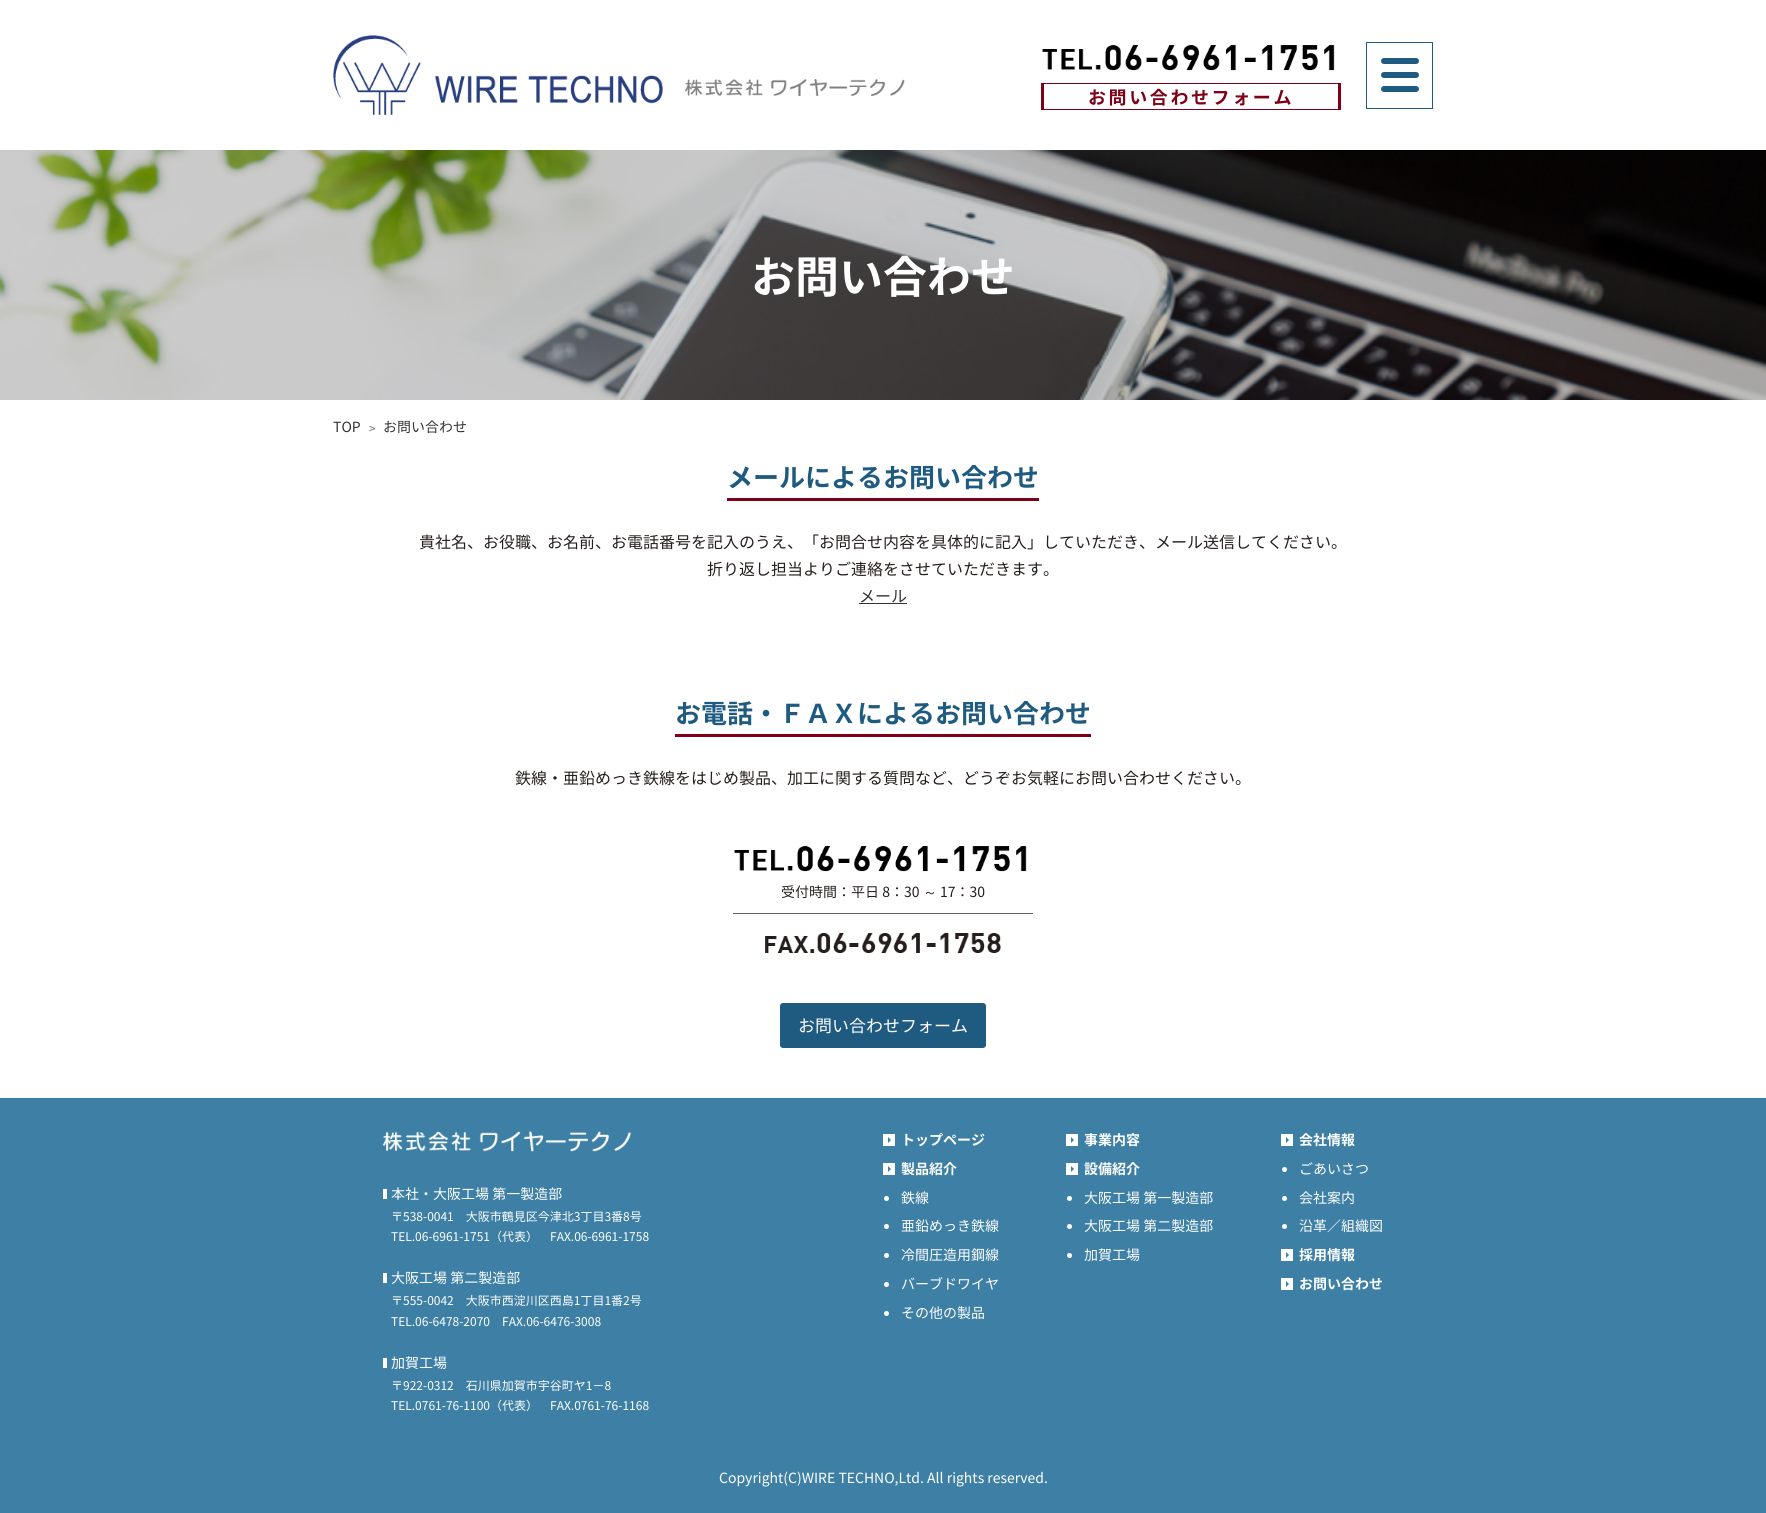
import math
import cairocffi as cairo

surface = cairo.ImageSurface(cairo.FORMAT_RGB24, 1766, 1513)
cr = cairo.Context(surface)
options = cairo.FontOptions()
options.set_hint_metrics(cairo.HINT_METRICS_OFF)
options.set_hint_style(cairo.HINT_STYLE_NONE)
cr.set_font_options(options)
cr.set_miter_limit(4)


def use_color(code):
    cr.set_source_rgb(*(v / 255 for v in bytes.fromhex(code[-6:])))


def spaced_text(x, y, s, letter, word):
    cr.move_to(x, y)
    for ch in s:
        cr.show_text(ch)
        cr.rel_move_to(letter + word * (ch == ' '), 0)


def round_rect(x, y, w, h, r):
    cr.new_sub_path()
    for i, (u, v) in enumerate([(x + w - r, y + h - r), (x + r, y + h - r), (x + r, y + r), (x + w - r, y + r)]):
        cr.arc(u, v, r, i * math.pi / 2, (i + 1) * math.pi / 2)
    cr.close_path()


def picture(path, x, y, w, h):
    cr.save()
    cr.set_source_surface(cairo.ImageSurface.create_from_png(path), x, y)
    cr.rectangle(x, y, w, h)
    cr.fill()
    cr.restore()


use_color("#ffffff")
cr.paint()
picture("img1.png", 333, 35, 330, 80)
picture("img2.png", 685, 79, 220, 17)
picture("img3.png", 1042, 45, 293, 26)
use_color("#800018")
cr.rectangle(1041, 83, 300, 1)
cr.fill()
cr.rectangle(1338, 83, 3, 27)
cr.fill()
cr.rectangle(1041, 109, 300, 1)
cr.fill()
cr.rectangle(1041, 83, 3, 27)
cr.fill()
cr.select_font_face("Noto Sans JP", cairo.FONT_SLANT_NORMAL, cairo.FONT_WEIGHT_BOLD)
cr.set_font_size(18)
spaced_text(1088, 104, "お問い合わせフォーム", 2.6, 0)
cr.rectangle(1366.5, 42.5, 66, 66)
use_color("#1f5a80")
cr.set_line_width(1)
cr.stroke()
round_rect(1381, 58, 38, 6, 3)
cr.fill()
round_rect(1381, 72, 38, 6, 3)
cr.fill()
round_rect(1381, 86, 38, 6, 3)
cr.fill()
picture("img4.png", 0, 150, 1766, 250)
cr.set_font_size(44)
use_color("#ffffff")
cr.move_to(751, 293)
cr.show_text("お問い合わせ")
cr.select_font_face("Noto Sans JP")
cr.set_font_size(14)
use_color("#333333")
cr.move_to(333, 432)
cr.show_text("TOP")
cr.select_font_face("DejaVu Sans Mono")
cr.set_font_size(11)
use_color("#726e6d")
cr.move_to(369, 432)
cr.show_text(">")
cr.select_font_face("Noto Sans JP")
cr.set_font_size(14)
use_color("#333333")
cr.move_to(383, 432)
cr.show_text("お問い合わせ")
cr.select_font_face("Noto Sans JP", cairo.FONT_SLANT_NORMAL, cairo.FONT_WEIGHT_BOLD)
cr.set_font_size(26)
use_color("#1f5a80")
cr.move_to(727, 487)
cr.show_text("メールによるお問い合わせ")
use_color("#800018")
cr.rectangle(727, 498, 312, 3)
cr.fill()
cr.select_font_face("Noto Sans JP")
cr.set_font_size(16)
use_color("#251e1c")
cr.move_to(419, 548)
cr.show_text("貴社名、お役職、お名前、お電話番号を記入のうえ、「お問合せ内容を具体的に記入」していただき、メール送信してください。")
cr.move_to(707, 575)
cr.show_text("折り返し担当よりご連絡をさせていただきます。")
use_color("#333333")
cr.move_to(859, 602)
cr.show_text("メール")
cr.rectangle(859, 603, 48, 1)
cr.fill()
cr.select_font_face("Noto Sans JP", cairo.FONT_SLANT_NORMAL, cairo.FONT_WEIGHT_BOLD)
cr.set_font_size(26)
use_color("#1f5a80")
cr.move_to(675, 723)
cr.show_text("お電話・ＦＡＸによるお問い合わせ")
use_color("#800018")
cr.rectangle(675, 734, 416, 3)
cr.fill()
cr.select_font_face("Noto Sans JP")
cr.set_font_size(16)
use_color("#251e1c")
cr.move_to(515, 784)
cr.show_text("鉄線・亜鉛めっき鉄線をはじめ製品、加工に関する質問など、どうぞお気軽にお問い合わせください。")
picture("img5.png", 734, 846, 293, 26)
cr.set_font_size(14)
cr.move_to(781, 897)
cr.show_text("受付時間：平日 8：30")
cr.select_font_face("WenQuanYi Zen Hei Medium")
cr.move_to(923, 897)
cr.show_text("～")
cr.select_font_face("Noto Sans JP")
cr.move_to(940, 897)
cr.show_text("17：30")
use_color("#636363")
cr.rectangle(733, 913, 300, 1)
cr.fill()
picture("img6.png", 765, 933, 236, 20)
use_color("#1f5a80")
round_rect(780, 1003, 206, 45, 3)
cr.fill()
cr.set_font_size(17)
use_color("#ffffff")
cr.move_to(798, 1032)
cr.show_text("お問い合わせフォーム")
use_color("#3e80a5")
cr.rectangle(0, 1098, 1766, 415)
cr.fill()
picture("img7.png", 383, 1131, 248, 21)
use_color("#ffffff")
cr.rectangle(383, 1189, 4, 10)
cr.fill()
cr.set_font_size(14)
cr.move_to(391, 1199)
cr.show_text("本社・大阪工場 第一製造部")
cr.set_font_size(12)
cr.move_to(391, 1221)
cr.show_text("〒538-0041　大阪市鶴見区今津北3丁目3番8号")
cr.move_to(391, 1241)
cr.show_text("TEL.06-6961-1751（代表）　FAX.06-6961-1758")
cr.rectangle(383, 1273, 4, 10)
cr.fill()
cr.set_font_size(14)
cr.move_to(391, 1283)
cr.show_text("大阪工場 第二製造部")
cr.set_font_size(12)
cr.move_to(391, 1305)
cr.show_text("〒555-0042　大阪市西淀川区西島1丁目1番2号")
cr.move_to(391, 1326)
cr.show_text("TEL.06-6478-2070　FAX.06-6476-3008")
cr.rectangle(383, 1358, 4, 10)
cr.fill()
cr.set_font_size(14)
cr.move_to(391, 1368)
cr.show_text("加賀工場")
cr.set_font_size(12)
cr.move_to(391, 1390)
cr.show_text("〒922-0312　石川県加賀市宇谷町ヤ1−8")
cr.move_to(391, 1410)
cr.show_text("TEL.0761-76-1100（代表）　FAX.0761-76-1168")
cr.rectangle(883, 1134, 12, 12)
cr.fill()
cr.select_font_face("Noto Sans JP", cairo.FONT_SLANT_NORMAL, cairo.FONT_WEIGHT_BOLD)
cr.set_font_size(14)
cr.move_to(901, 1145)
cr.show_text("トップページ")
use_color("#3e80a5")
cr.new_path()
cr.move_to(888, 1143)
cr.line_to(888, 1137)
cr.line_to(891, 1140)
cr.close_path()
cr.fill()
use_color("#ffffff")
cr.rectangle(883, 1163, 12, 12)
cr.fill()
cr.move_to(901, 1174)
cr.show_text("製品紹介")
use_color("#3e80a5")
cr.new_path()
cr.move_to(888, 1172)
cr.line_to(888, 1166)
cr.line_to(891, 1169)
cr.close_path()
cr.fill()
use_color("#ffffff")
cr.arc(886.5, 1198.5, 2.5, 0, 2 * math.pi)
cr.fill()
cr.select_font_face("Noto Sans JP")
cr.move_to(901, 1203)
cr.show_text("鉄線")
cr.new_path()
cr.arc(886.5, 1226.5, 2.5, 0, 2 * math.pi)
cr.fill()
cr.move_to(901, 1231)
cr.show_text("亜鉛めっき鉄線")
cr.new_path()
cr.arc(886.5, 1255.5, 2.5, 0, 2 * math.pi)
cr.fill()
cr.move_to(901, 1260)
cr.show_text("冷間圧造用鋼線")
cr.new_path()
cr.arc(886.5, 1284.5, 2.5, 0, 2 * math.pi)
cr.fill()
cr.move_to(901, 1289)
cr.show_text("バーブドワイヤ")
cr.new_path()
cr.arc(886.5, 1313.5, 2.5, 0, 2 * math.pi)
cr.fill()
cr.move_to(901, 1318)
cr.show_text("その他の製品")
cr.rectangle(1066, 1134, 12, 12)
cr.fill()
cr.select_font_face("Noto Sans JP", cairo.FONT_SLANT_NORMAL, cairo.FONT_WEIGHT_BOLD)
cr.move_to(1084, 1145)
cr.show_text("事業内容")
use_color("#3e80a5")
cr.new_path()
cr.move_to(1071, 1143)
cr.line_to(1071, 1137)
cr.line_to(1074, 1140)
cr.close_path()
cr.fill()
use_color("#ffffff")
cr.rectangle(1066, 1163, 12, 12)
cr.fill()
cr.move_to(1084, 1174)
cr.show_text("設備紹介")
use_color("#3e80a5")
cr.new_path()
cr.move_to(1071, 1172)
cr.line_to(1071, 1166)
cr.line_to(1074, 1169)
cr.close_path()
cr.fill()
use_color("#ffffff")
cr.arc(1069.5, 1198.5, 2.5, 0, 2 * math.pi)
cr.fill()
cr.select_font_face("Noto Sans JP")
cr.move_to(1084, 1203)
cr.show_text("大阪工場 第一製造部")
cr.new_path()
cr.arc(1069.5, 1226.5, 2.5, 0, 2 * math.pi)
cr.fill()
cr.move_to(1084, 1231)
cr.show_text("大阪工場 第二製造部")
cr.new_path()
cr.arc(1069.5, 1255.5, 2.5, 0, 2 * math.pi)
cr.fill()
cr.move_to(1084, 1260)
cr.show_text("加賀工場")
cr.rectangle(1281, 1134, 12, 12)
cr.fill()
cr.select_font_face("Noto Sans JP", cairo.FONT_SLANT_NORMAL, cairo.FONT_WEIGHT_BOLD)
cr.move_to(1299, 1145)
cr.show_text("会社情報")
use_color("#3e80a5")
cr.new_path()
cr.move_to(1286, 1143)
cr.line_to(1286, 1137)
cr.line_to(1289, 1140)
cr.close_path()
cr.fill()
use_color("#ffffff")
cr.arc(1284.5, 1169.5, 2.5, 0, 2 * math.pi)
cr.fill()
cr.select_font_face("Noto Sans JP")
cr.move_to(1299, 1174)
cr.show_text("ごあいさつ")
cr.new_path()
cr.arc(1284.5, 1198.5, 2.5, 0, 2 * math.pi)
cr.fill()
cr.move_to(1299, 1203)
cr.show_text("会社案内")
cr.new_path()
cr.arc(1284.5, 1226.5, 2.5, 0, 2 * math.pi)
cr.fill()
cr.move_to(1299, 1231)
cr.show_text("沿革／組織図")
cr.rectangle(1281, 1249, 12, 12)
cr.fill()
cr.select_font_face("Noto Sans JP", cairo.FONT_SLANT_NORMAL, cairo.FONT_WEIGHT_BOLD)
cr.move_to(1299, 1260)
cr.show_text("採用情報")
use_color("#3e80a5")
cr.new_path()
cr.move_to(1286, 1258)
cr.line_to(1286, 1252)
cr.line_to(1289, 1255)
cr.close_path()
cr.fill()
use_color("#ffffff")
cr.rectangle(1281, 1278, 12, 12)
cr.fill()
cr.move_to(1299, 1289)
cr.show_text("お問い合わせ")
use_color("#3e80a5")
cr.new_path()
cr.move_to(1286, 1287)
cr.line_to(1286, 1281)
cr.line_to(1289, 1284)
cr.close_path()
cr.fill()
cr.select_font_face("Noto Sans JP")
use_color("#ffffff")
cr.move_to(719, 1483)
cr.show_text("Copyright(C)WIRE TECHNO,Ltd. All rights reserved.")
surface.write_to_png("result.png")
